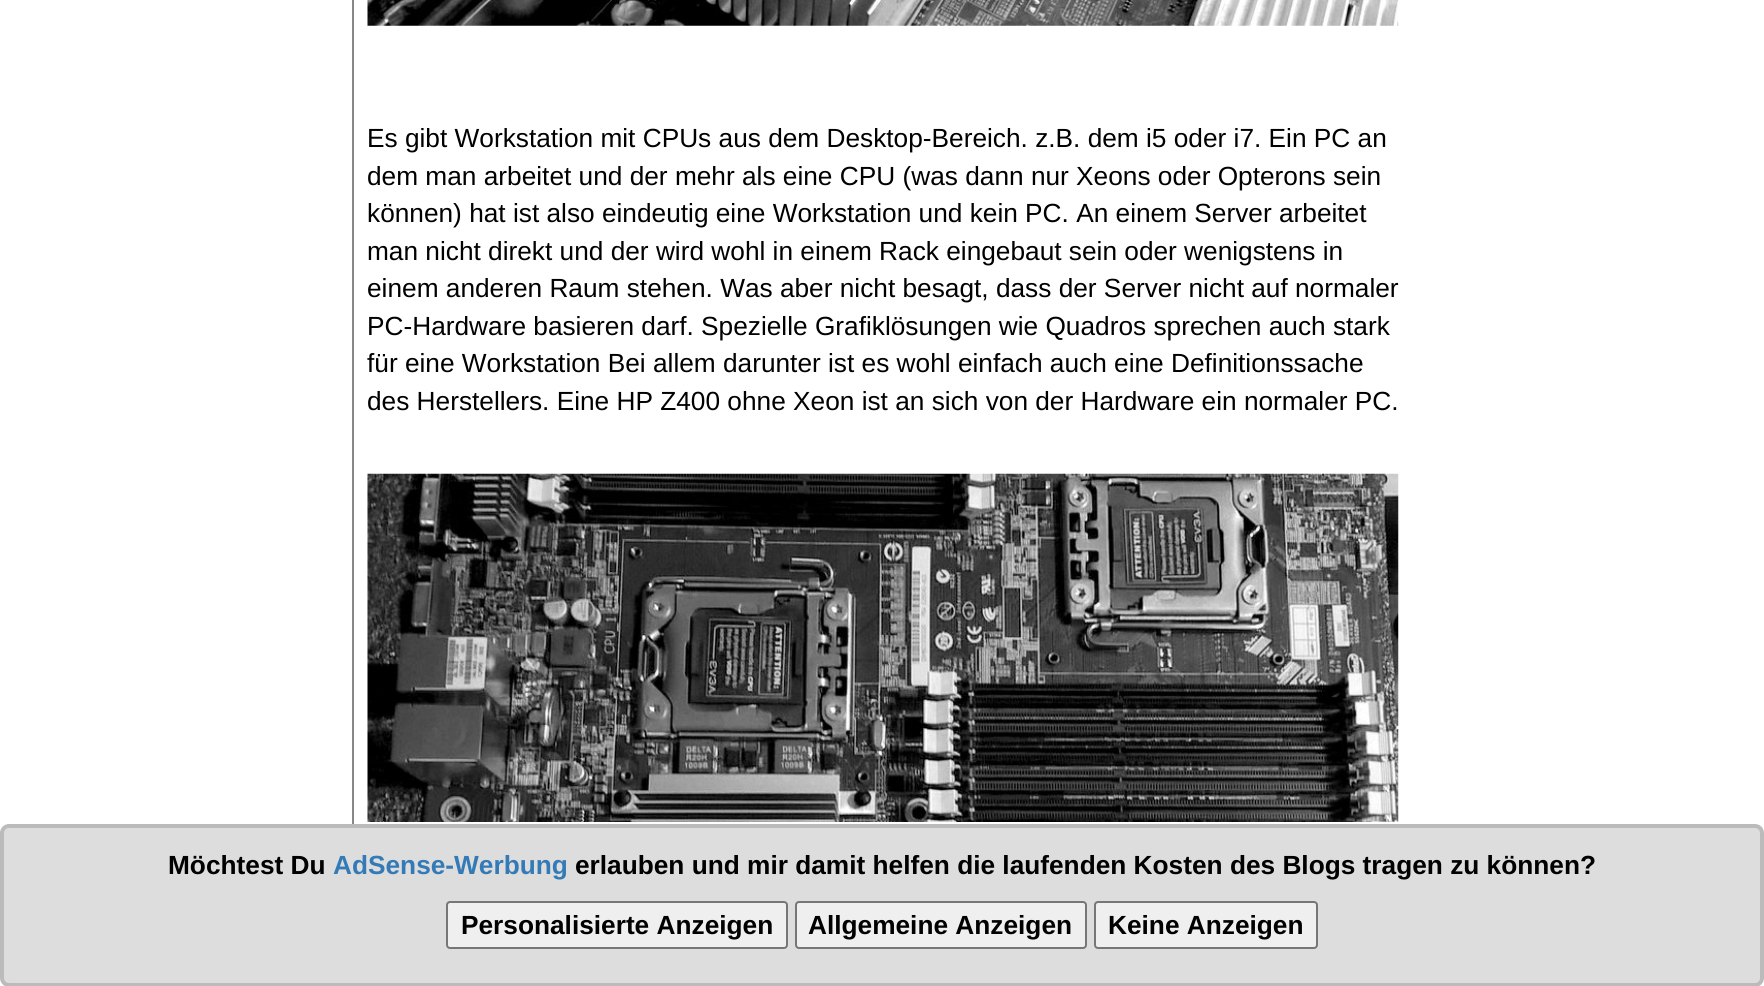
import math
import cairocffi as cairo

surface = cairo.ImageSurface(cairo.FORMAT_RGB24, 1764, 986)
cr = cairo.Context(surface)
options = cairo.FontOptions()
options.set_hint_metrics(cairo.HINT_METRICS_OFF)
options.set_hint_style(cairo.HINT_STYLE_NONE)
cr.set_font_options(options)
cr.set_miter_limit(4)


def use_color(code):
    cr.set_source_rgb(*(v / 255 for v in bytes.fromhex(code[-6:])))


def round_rect(x, y, w, h, r):
    cr.new_sub_path()
    for i, (u, v) in enumerate([(x + w - r, y + h - r), (x + r, y + h - r), (x + r, y + r), (x + w - r, y + r)]):
        cr.arc(u, v, r, i * math.pi / 2, (i + 1) * math.pi / 2)
    cr.close_path()


def picture(path, x, y, w, h):
    cr.save()
    cr.set_source_surface(cairo.ImageSurface.create_from_png(path), x, y)
    cr.rectangle(x, y, w, h)
    cr.fill()
    cr.restore()


use_color("#ffffff")
cr.paint()
use_color("#888888")
cr.rectangle(352, 0, 2, 824)
cr.fill()
picture("img1.png", 367, 0, 1032, 26)
cr.select_font_face("Liberation Sans")
cr.set_font_size(26.25)
use_color("#000000")
cr.move_to(367, 147)
cr.show_text("Es gibt Workstation mit CPUs aus dem Desktop-Bereich. z.B. dem i5 oder i7. Ein PC an")
cr.move_to(367, 185)
cr.show_text("dem man arbeitet und der mehr als eine CPU (was dann nur Xeons oder Opterons sein")
cr.move_to(367, 222)
cr.show_text("können) hat ist also eindeutig eine Workstation und kein PC. An einem Server arbeitet")
cr.move_to(367, 260)
cr.show_text("man nicht direkt und der wird wohl in einem Rack eingebaut sein oder wenigstens in")
cr.move_to(367, 297)
cr.show_text("einem anderen Raum stehen. Was aber nicht besagt, dass der Server nicht auf normaler")
cr.move_to(367, 335)
cr.show_text("PC-Hardware basieren darf. Spezielle Grafiklösungen wie Quadros sprechen auch stark")
cr.move_to(367, 372)
cr.show_text("für eine Workstation Bei allem darunter ist es wohl einfach auch eine Definitionssache")
cr.move_to(367, 410)
cr.show_text("des Herstellers. Eine HP Z400 ohne Xeon ist an sich von der Hardware ein normaler PC.")
picture("img2.png", 367, 473, 1032, 349)
use_color("#dddddd")
round_rect(2, 826, 1760, 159, 7)
cr.fill_preserve()
use_color("#bbbbbb")
cr.set_line_width(4)
cr.stroke()
cr.select_font_face("Liberation Sans", cairo.FONT_SLANT_NORMAL, cairo.FONT_WEIGHT_BOLD)
use_color("#000000")
cr.move_to(168, 874)
cr.show_text("Möchtest Du")
use_color("#337ab7")
cr.move_to(333, 874)
cr.show_text("AdSense-Werbung")
use_color("#000000")
cr.move_to(575, 874)
cr.show_text("erlauben und mir damit helfen die laufenden Kosten des Blogs tragen zu können?")
use_color("#efefef")
round_rect(447, 902, 340, 46, 3)
cr.fill_preserve()
use_color("#767676")
cr.set_line_width(2)
cr.stroke()
use_color("#000000")
cr.move_to(461, 934)
cr.show_text("Personalisierte Anzeigen")
use_color("#efefef")
round_rect(796, 902, 290, 46, 3)
cr.fill_preserve()
use_color("#767676")
cr.stroke()
use_color("#000000")
cr.move_to(808, 934)
cr.show_text("Allgemeine Anzeigen")
use_color("#efefef")
round_rect(1095, 902, 222, 46, 3)
cr.fill_preserve()
use_color("#767676")
cr.stroke()
use_color("#000000")
cr.move_to(1108, 934)
cr.show_text("Keine Anzeigen")
surface.write_to_png("result.png")
